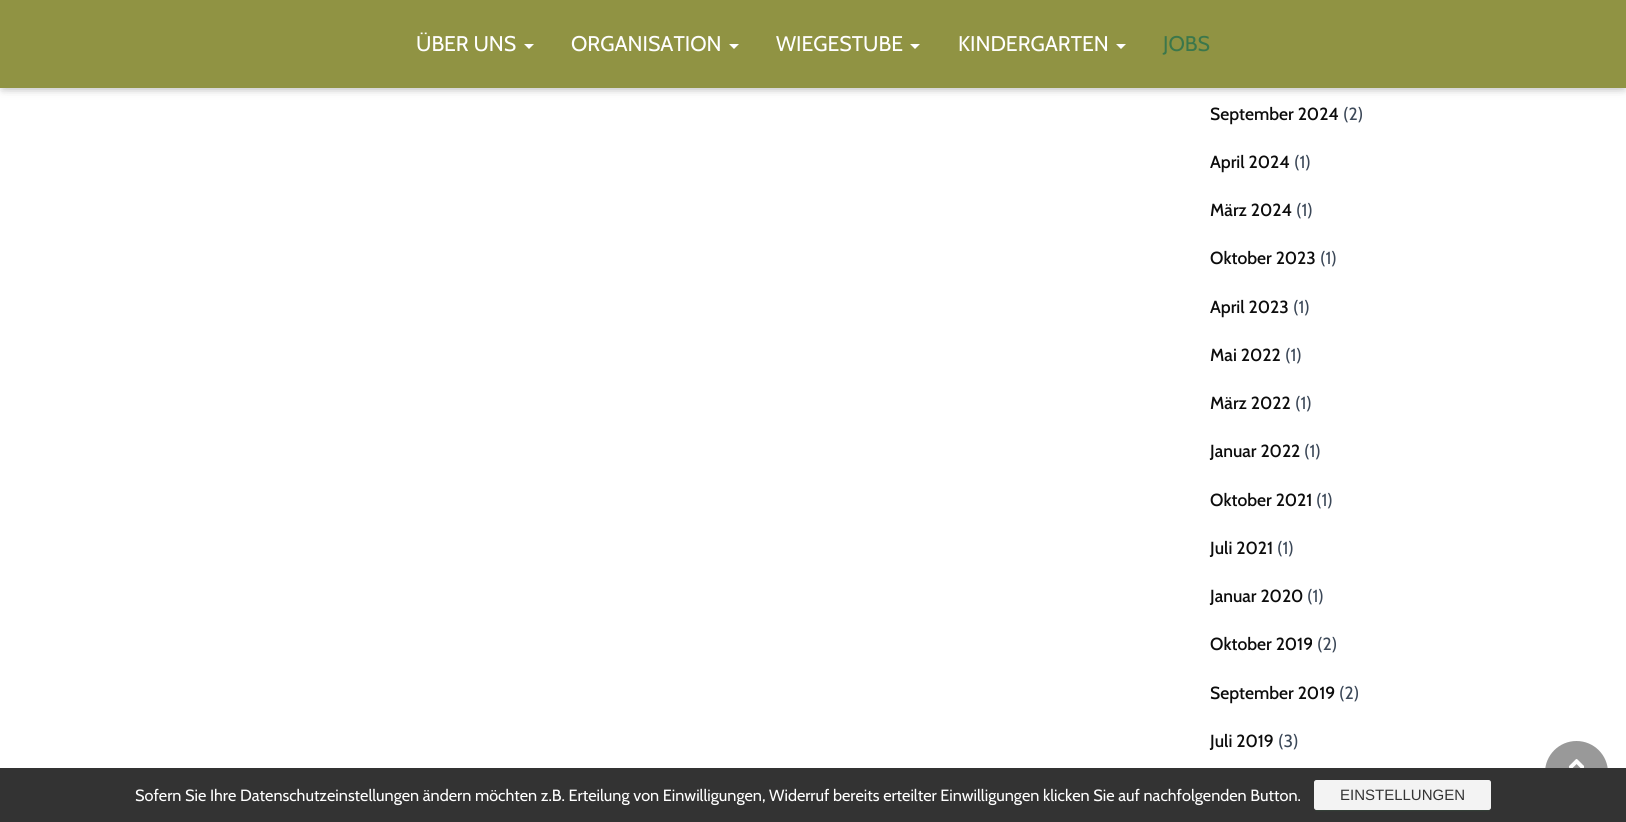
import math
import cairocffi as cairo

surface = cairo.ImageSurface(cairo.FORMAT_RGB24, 1626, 822)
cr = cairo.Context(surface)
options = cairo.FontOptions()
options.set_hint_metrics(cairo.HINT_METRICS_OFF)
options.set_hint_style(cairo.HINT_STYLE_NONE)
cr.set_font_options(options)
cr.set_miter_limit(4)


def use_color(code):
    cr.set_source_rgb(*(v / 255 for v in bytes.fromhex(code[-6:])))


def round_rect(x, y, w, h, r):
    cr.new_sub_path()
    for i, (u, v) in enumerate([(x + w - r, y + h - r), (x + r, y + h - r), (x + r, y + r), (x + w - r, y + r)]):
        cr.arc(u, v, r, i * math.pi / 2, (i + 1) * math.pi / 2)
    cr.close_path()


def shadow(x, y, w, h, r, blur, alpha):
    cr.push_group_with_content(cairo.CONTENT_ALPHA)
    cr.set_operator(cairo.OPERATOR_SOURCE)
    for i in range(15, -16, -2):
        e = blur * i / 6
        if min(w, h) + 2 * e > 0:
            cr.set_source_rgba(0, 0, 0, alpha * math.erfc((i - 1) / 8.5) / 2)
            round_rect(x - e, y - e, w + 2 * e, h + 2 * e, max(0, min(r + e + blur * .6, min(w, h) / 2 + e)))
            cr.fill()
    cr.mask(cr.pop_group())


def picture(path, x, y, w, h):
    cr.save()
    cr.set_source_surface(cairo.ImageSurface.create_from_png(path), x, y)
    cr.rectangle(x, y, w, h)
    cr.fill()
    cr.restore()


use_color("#ffffff")
cr.paint()
use_color("#000000")
shadow(3, 8, 1621, 82, 0, 3, 0.1)
shadow(0, 1, 1626, 88, 0, 6, 0.12)
shadow(8, 9, 1611, 72, 0, 6, 0.42)
use_color("#909343")
cr.rectangle(0, 0, 1626, 88)
cr.fill()
cr.select_font_face("Cabin")
cr.set_font_size(21.25)
use_color("#ffffff")
cr.move_to(416, 51)
cr.show_text("ÜBER UNS")
cr.new_path()
cr.move_to(524, 44)
cr.line_to(534, 44)
cr.line_to(529, 49)
cr.close_path()
cr.fill()
cr.move_to(571, 51)
cr.show_text("ORGANISATION")
cr.new_path()
cr.move_to(729, 44)
cr.line_to(739, 44)
cr.line_to(734, 49)
cr.close_path()
cr.fill()
cr.move_to(776, 51)
cr.show_text("WIEGESTUBE")
cr.new_path()
cr.move_to(910, 44)
cr.line_to(920, 44)
cr.line_to(915, 49)
cr.close_path()
cr.fill()
cr.move_to(958, 51)
cr.show_text("KINDERGARTEN")
cr.new_path()
cr.move_to(1116, 44)
cr.line_to(1126, 44)
cr.line_to(1121, 49)
cr.close_path()
cr.fill()
use_color("#3b774b")
cr.move_to(1163, 51)
cr.show_text("JOBS")
cr.select_font_face("Cabin Medium")
cr.set_font_size(17.5)
use_color("#0c0c0c")
cr.move_to(1210, 120)
cr.show_text("September 2024")
cr.select_font_face("Cabin")
use_color("#3c4858")
cr.move_to(1343, 120)
cr.show_text("(2)")
cr.select_font_face("Cabin Medium")
use_color("#0c0c0c")
cr.move_to(1210, 168)
cr.show_text("April 2024")
cr.select_font_face("Cabin")
use_color("#3c4858")
cr.move_to(1294, 168)
cr.show_text("(1)")
cr.select_font_face("Cabin Medium")
use_color("#0c0c0c")
cr.move_to(1210, 216)
cr.show_text("März 2024")
cr.select_font_face("Cabin")
use_color("#3c4858")
cr.move_to(1296, 216)
cr.show_text("(1)")
cr.select_font_face("Cabin Medium")
use_color("#0c0c0c")
cr.move_to(1210, 264)
cr.show_text("Oktober 2023")
cr.select_font_face("Cabin")
use_color("#3c4858")
cr.move_to(1320, 264)
cr.show_text("(1)")
cr.select_font_face("Cabin Medium")
use_color("#0c0c0c")
cr.move_to(1210, 313)
cr.show_text("April 2023")
cr.select_font_face("Cabin")
use_color("#3c4858")
cr.move_to(1293, 313)
cr.show_text("(1)")
cr.select_font_face("Cabin Medium")
use_color("#0c0c0c")
cr.move_to(1210, 361)
cr.show_text("Mai 2022")
cr.select_font_face("Cabin")
use_color("#3c4858")
cr.move_to(1285, 361)
cr.show_text("(1)")
cr.select_font_face("Cabin Medium")
use_color("#0c0c0c")
cr.move_to(1210, 409)
cr.show_text("März 2022")
cr.select_font_face("Cabin")
use_color("#3c4858")
cr.move_to(1295, 409)
cr.show_text("(1)")
cr.select_font_face("Cabin Medium")
use_color("#0c0c0c")
cr.move_to(1210, 457)
cr.show_text("Januar 2022")
cr.select_font_face("Cabin")
use_color("#3c4858")
cr.move_to(1304, 457)
cr.show_text("(1)")
cr.select_font_face("Cabin Medium")
use_color("#0c0c0c")
cr.move_to(1210, 506)
cr.show_text("Oktober 2021")
cr.select_font_face("Cabin")
use_color("#3c4858")
cr.move_to(1316, 506)
cr.show_text("(1)")
cr.select_font_face("Cabin Medium")
use_color("#0c0c0c")
cr.move_to(1210, 554)
cr.show_text("Juli 2021")
cr.select_font_face("Cabin")
use_color("#3c4858")
cr.move_to(1277, 554)
cr.show_text("(1)")
cr.select_font_face("Cabin Medium")
use_color("#0c0c0c")
cr.move_to(1210, 602)
cr.show_text("Januar 2020")
cr.select_font_face("Cabin")
use_color("#3c4858")
cr.move_to(1307, 602)
cr.show_text("(1)")
cr.select_font_face("Cabin Medium")
use_color("#0c0c0c")
cr.move_to(1210, 650)
cr.show_text("Oktober 2019")
cr.select_font_face("Cabin")
use_color("#3c4858")
cr.move_to(1317, 650)
cr.show_text("(2)")
cr.select_font_face("Cabin Medium")
use_color("#0c0c0c")
cr.move_to(1210, 699)
cr.show_text("September 2019")
cr.select_font_face("Cabin")
use_color("#3c4858")
cr.move_to(1339, 699)
cr.show_text("(2)")
cr.select_font_face("Cabin Medium")
use_color("#0c0c0c")
cr.move_to(1210, 747)
cr.show_text("Juli 2019")
cr.select_font_face("Cabin")
use_color("#3c4858")
cr.move_to(1278, 747)
cr.show_text("(3)")
use_color("#999999")
cr.new_path()
cr.arc(1576.5, 772.5, 31.5, 0, 2 * math.pi)
cr.fill()
use_color("#333333")
cr.rectangle(0, 768, 1626, 54)
cr.fill()
cr.set_font_size(16.25)
use_color("#ffffff")
cr.move_to(135, 801)
cr.show_text("Sofern Sie Ihre Datenschutzeinstellungen ändern möchten z.B. Erteilung von Einwilligungen, Widerruf bereits erteilter Einwilligungen klicken Sie auf nachfolgenden Button.")
use_color("#3b774b")
shadow(1316, 786, 173, 25, 0, 0.5, 0.2)
use_color("#f3f3f3")
round_rect(1314.5, 780.5, 176, 29, 2)
cr.fill_preserve()
cr.set_line_width(1)
cr.stroke()
cr.select_font_face("Liberation Sans")
cr.set_font_size(15)
use_color("#333333")
cr.move_to(1340, 800)
cr.show_text("EINSTELLUNGEN")
picture("img1.png", 1569, 759, 15, 9)
surface.write_to_png("result.png")
